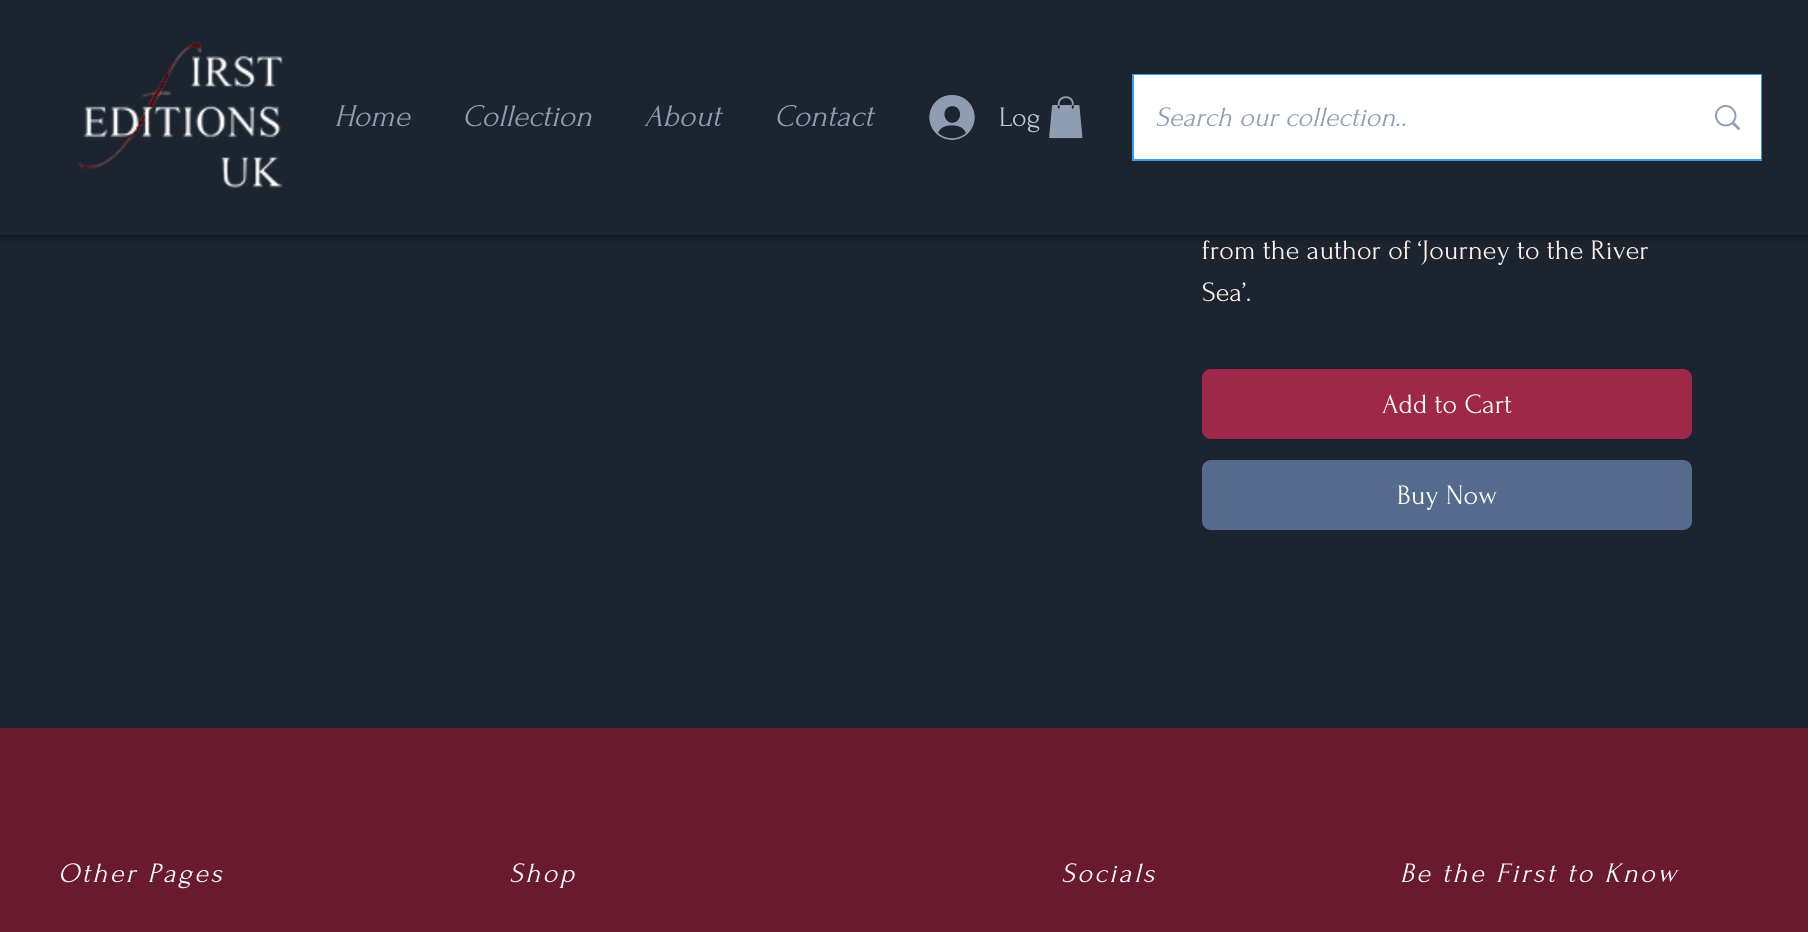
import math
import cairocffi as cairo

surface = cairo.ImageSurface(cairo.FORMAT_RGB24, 1808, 932)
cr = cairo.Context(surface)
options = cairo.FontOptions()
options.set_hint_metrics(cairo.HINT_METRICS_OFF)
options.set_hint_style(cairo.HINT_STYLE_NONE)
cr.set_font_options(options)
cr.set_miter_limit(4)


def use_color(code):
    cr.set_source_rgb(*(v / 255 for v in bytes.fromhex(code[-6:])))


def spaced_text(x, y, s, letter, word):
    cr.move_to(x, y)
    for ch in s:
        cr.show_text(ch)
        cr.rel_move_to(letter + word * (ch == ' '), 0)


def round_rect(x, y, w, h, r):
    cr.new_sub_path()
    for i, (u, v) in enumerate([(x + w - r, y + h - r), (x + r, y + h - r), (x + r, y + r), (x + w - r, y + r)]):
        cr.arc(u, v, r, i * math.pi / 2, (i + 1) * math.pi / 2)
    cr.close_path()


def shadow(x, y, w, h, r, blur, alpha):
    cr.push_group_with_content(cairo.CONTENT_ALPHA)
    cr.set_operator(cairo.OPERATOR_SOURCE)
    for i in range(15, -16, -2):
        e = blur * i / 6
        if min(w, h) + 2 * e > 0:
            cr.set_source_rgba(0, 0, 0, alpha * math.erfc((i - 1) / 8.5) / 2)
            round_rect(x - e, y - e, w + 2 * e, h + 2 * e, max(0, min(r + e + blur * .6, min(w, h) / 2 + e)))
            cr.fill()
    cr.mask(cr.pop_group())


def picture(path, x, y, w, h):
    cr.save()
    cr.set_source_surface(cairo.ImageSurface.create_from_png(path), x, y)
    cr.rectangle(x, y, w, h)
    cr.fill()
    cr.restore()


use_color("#1c242f")
cr.paint()
use_color("#000000")
shadow(0, 0, 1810, 235, 0, 4.5, 0.7)
use_color("#1c242f")
cr.rectangle(0, 0, 1808, 235)
cr.fill()
picture("img1.png", 77, 42, 206, 146)
cr.select_font_face("Forum", cairo.FONT_SLANT_ITALIC)
cr.set_font_size(31.5)
use_color("#8f9db3")
cr.move_to(334, 126)
cr.show_text("Home")
cr.move_to(462, 126)
cr.show_text("Collection")
cr.move_to(644, 126)
cr.show_text("About")
cr.move_to(774, 126)
cr.show_text("Contact")
picture("img2.png", 929, 95, 46, 45)
cr.select_font_face("Forum")
cr.set_font_size(28)
use_color("#bcc8d9")
cr.move_to(999, 126)
cr.show_text("Log")
picture("img3.png", 1049, 96, 34, 43)
cr.rectangle(1133, 75, 628, 85)
use_color("#3d9be9")
cr.stroke()
use_color("#ffffff")
cr.rectangle(1134, 75, 627, 84)
cr.fill()
cr.select_font_face("Forum", cairo.FONT_SLANT_ITALIC)
use_color("#8f9db3")
cr.move_to(1155, 126)
cr.show_text("Search our collection..")
picture("img4.png", 1715, 105, 25, 25)
cr.select_font_face("Forum")
use_color("#fff0eb")
cr.move_to(1202, 259)
cr.show_text("from the author of ‘Journey to the River")
cr.move_to(1202, 301)
cr.show_text("Sea’.")
use_color("#9f2747")
round_rect(1202, 369, 490, 70, 9)
cr.fill()
use_color("#ffffff")
cr.move_to(1382, 413)
cr.show_text("Add to Cart")
use_color("#556b8d")
round_rect(1202, 460, 490, 70, 9)
cr.fill()
use_color("#ffffff")
cr.move_to(1397, 504)
cr.show_text("Buy Now")
use_color("#6a1a2f")
cr.rectangle(0, 728, 1808, 204)
cr.fill()
cr.select_font_face("Forum", cairo.FONT_SLANT_ITALIC)
use_color("#ffffff")
spaced_text(58, 882, "Other Pages", 2.5, 0)
spaced_text(509, 882, "Shop", 2.5, 0)
spaced_text(1061, 882, "Socials", 2.5, 0)
spaced_text(1400, 882, "Be the First to Know", 2.5, 0)
surface.write_to_png("result.png")
